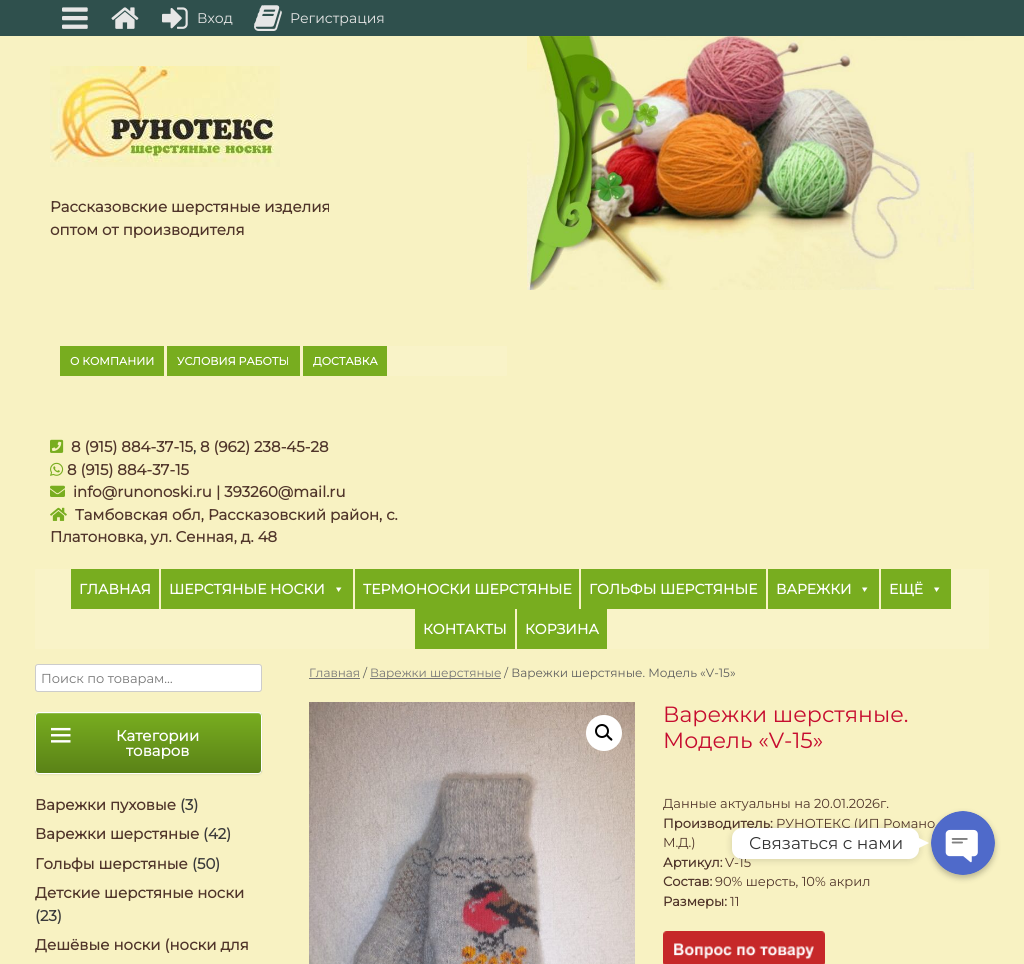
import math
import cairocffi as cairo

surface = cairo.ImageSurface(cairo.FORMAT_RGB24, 1024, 964)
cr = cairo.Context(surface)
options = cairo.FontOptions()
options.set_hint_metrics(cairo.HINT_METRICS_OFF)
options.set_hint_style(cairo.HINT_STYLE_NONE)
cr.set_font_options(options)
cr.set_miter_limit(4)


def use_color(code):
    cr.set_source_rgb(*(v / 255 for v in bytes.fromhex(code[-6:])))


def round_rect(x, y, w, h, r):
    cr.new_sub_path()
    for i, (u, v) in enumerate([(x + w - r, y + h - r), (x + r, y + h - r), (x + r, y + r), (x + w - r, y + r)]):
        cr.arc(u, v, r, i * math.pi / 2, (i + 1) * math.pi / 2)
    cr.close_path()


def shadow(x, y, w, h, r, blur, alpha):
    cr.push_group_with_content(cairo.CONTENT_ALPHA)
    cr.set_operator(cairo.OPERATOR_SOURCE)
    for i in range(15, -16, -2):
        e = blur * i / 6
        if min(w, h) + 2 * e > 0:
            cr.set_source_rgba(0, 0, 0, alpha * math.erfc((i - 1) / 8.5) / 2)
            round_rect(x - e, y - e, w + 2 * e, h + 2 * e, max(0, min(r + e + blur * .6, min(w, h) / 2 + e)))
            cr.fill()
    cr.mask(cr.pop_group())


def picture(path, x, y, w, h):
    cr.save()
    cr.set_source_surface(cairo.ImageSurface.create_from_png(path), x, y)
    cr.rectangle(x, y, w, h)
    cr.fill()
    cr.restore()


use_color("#f8f2c2")
cr.paint()
use_color("#2f504d")
cr.rectangle(0, 0, 1024, 36)
cr.fill()
picture("img1.png", 62, 7, 26, 22)
picture("img2.png", 111, 7, 28, 22)
picture("img3.png", 162, 7, 26, 22)
cr.select_font_face("Montserrat Thin")
cr.set_font_size(14)
use_color("#e6e6e6")
cr.move_to(197, 23)
cr.show_text("Вход")
picture("img4.png", 254, 5, 28, 26)
cr.move_to(290, 23)
cr.show_text("Регистрация")
picture("img5.png", 50, 66, 230, 101)
cr.select_font_face("Montserrat", cairo.FONT_SLANT_NORMAL, cairo.FONT_WEIGHT_BOLD)
cr.set_font_size(15)
use_color("#50352a")
cr.move_to(50, 212)
cr.show_text("Рассказовские шерстяные изделия")
cr.move_to(50, 235)
cr.show_text("оптом от производителя")
picture("img6.png", 527, 36, 447, 254)
use_color("#f9f3c8")
round_rect(60, 346, 447, 30, 1)
cr.fill()
use_color("#78ad1f")
cr.rectangle(60, 346, 104, 30)
cr.fill()
cr.set_font_size(11)
use_color("#ffffff")
cr.move_to(70, 365)
cr.show_text("О КОМПАНИИ")
use_color("#78ad1f")
cr.rectangle(167, 346, 133, 30)
cr.fill()
use_color("#ffffff")
cr.move_to(177, 365)
cr.show_text("УСЛОВИЯ РАБОТЫ")
use_color("#78ad1f")
cr.rectangle(303, 346, 84, 30)
cr.fill()
use_color("#ffffff")
cr.move_to(313, 365)
cr.show_text("ДОСТАВКА")
picture("img7.png", 50, 439, 14, 14)
cr.set_font_size(15)
use_color("#50352a")
cr.move_to(71, 452)
cr.show_text("8 (915) 884-37-15")
use_color("#3b3b3b")
cr.move_to(193, 452)
cr.show_text(",")
use_color("#50352a")
cr.move_to(200, 452)
cr.show_text("8 (962) 238-45-28")
picture("img8.png", 50, 462, 14, 14)
cr.move_to(67, 475)
cr.show_text("8 (915) 884-37-15")
picture("img9.png", 50, 485, 15, 12)
cr.move_to(73, 497)
cr.show_text("info@runonoski.ru | 393260@mail.ru")
picture("img10.png", 50, 507, 17, 14)
cr.move_to(75, 520)
cr.show_text("Тамбовская обл, Рассказовский район, с.")
cr.move_to(50, 542)
cr.show_text("Платоновка, ул. Сенная, д. 48")
use_color("#f9f3c8")
round_rect(35, 569, 954, 80, 1)
cr.fill()
use_color("#78ad1f")
cr.rectangle(71, 569, 88, 40)
cr.fill()
cr.set_font_size(14)
use_color("#ffffff")
cr.move_to(79, 594)
cr.show_text("ГЛАВНАЯ")
use_color("#78ad1f")
cr.rectangle(161, 569, 192, 40)
cr.fill()
use_color("#ffffff")
cr.move_to(169, 594)
cr.show_text("ШЕРСТЯНЫЕ НОСКИ")
cr.new_path()
cr.move_to(341.5, 587.5)
cr.line_to(338.5, 592)
cr.line_to(336, 587.5)
cr.close_path()
cr.fill()
use_color("#78ad1f")
cr.rectangle(355, 569, 224, 40)
cr.fill()
use_color("#ffffff")
cr.move_to(363, 594)
cr.show_text("ТЕРМОНОСКИ ШЕРСТЯНЫЕ")
use_color("#78ad1f")
cr.rectangle(581, 569, 185, 40)
cr.fill()
use_color("#ffffff")
cr.move_to(589, 594)
cr.show_text("ГОЛЬФЫ ШЕРСТЯНЫЕ")
use_color("#78ad1f")
cr.rectangle(768, 569, 111, 40)
cr.fill()
use_color("#ffffff")
cr.move_to(776, 594)
cr.show_text("ВАРЕЖКИ")
cr.new_path()
cr.move_to(867.5, 587.5)
cr.line_to(864.5, 592)
cr.line_to(862, 587.5)
cr.close_path()
cr.fill()
use_color("#78ad1f")
cr.rectangle(881, 569, 70, 40)
cr.fill()
use_color("#ffffff")
cr.move_to(889, 594)
cr.show_text("ЕЩЁ")
cr.new_path()
cr.move_to(939.5, 587.5)
cr.line_to(936.5, 592)
cr.line_to(934, 587.5)
cr.close_path()
cr.fill()
use_color("#78ad1f")
cr.rectangle(415, 609, 100, 40)
cr.fill()
use_color("#ffffff")
cr.move_to(423, 634)
cr.show_text("КОНТАКТЫ")
use_color("#78ad1f")
cr.rectangle(517, 609, 90, 40)
cr.fill()
use_color("#ffffff")
cr.move_to(525, 634)
cr.show_text("КОРЗИНА")
round_rect(35.5, 664.5, 226, 27, 2.5)
cr.fill_preserve()
use_color("#cccccc")
cr.set_line_width(1)
cr.stroke()
cr.select_font_face("Montserrat Thin")
cr.set_font_size(13)
use_color("#767676")
cr.move_to(41, 683)
cr.show_text("Поиск по товарам…")
use_color("#000000")
shadow(35, 713, 227, 62, 4, 1, 0.07)
cr.save()
round_rect(35, 712, 227, 62, 4)
cr.clip()
gradient = cairo.LinearGradient(36, 773, 36, 713)
gradient.add_color_stop_rgba(0, 0.353, 0.51, 0.09, 1)
gradient.add_color_stop_rgba(1, 0.471, 0.678, 0.122, 1)
cr.set_source(gradient)
cr.rectangle(35, 713, 227, 60)
cr.fill()
cr.restore()
use_color("#93bd4c")
cr.new_path()
cr.move_to(39, 714)
cr.line_to(258, 714)
cr.curve_to(260, 714, 261, 715, 261, 717)
cr.line_to(261, 716)
cr.curve_to(261, 714, 260, 713, 258, 713)
cr.line_to(39, 713)
cr.curve_to(37, 713, 36, 714, 36, 716)
cr.line_to(36, 717)
cr.curve_to(36, 715, 37, 714, 39, 714)
cr.close_path()
cr.fill()
round_rect(35.5, 712.5, 226, 61, 3.5)
use_color("#ffffff")
cr.stroke()
picture("img11.png", 51, 727, 20, 16)
cr.select_font_face("Montserrat", cairo.FONT_SLANT_NORMAL, cairo.FONT_WEIGHT_BOLD)
cr.set_font_size(15)
cr.move_to(116, 741)
cr.show_text("Категории")
cr.move_to(126, 756)
cr.show_text("товаров")
use_color("#50352a")
cr.move_to(35, 810)
cr.show_text("Варежки пуховые")
use_color("#3b3b3b")
cr.move_to(180, 810)
cr.show_text("(3)")
use_color("#50352a")
cr.move_to(35, 839)
cr.show_text("Варежки шерстяные")
use_color("#3b3b3b")
cr.move_to(203, 839)
cr.show_text("(42)")
use_color("#50352a")
cr.move_to(35, 869)
cr.show_text("Гольфы шерстяные")
use_color("#3b3b3b")
cr.move_to(192, 869)
cr.show_text("(50)")
use_color("#50352a")
cr.move_to(35, 898)
cr.show_text("Детские шерстяные носки")
use_color("#3b3b3b")
cr.move_to(35, 921)
cr.show_text("(23)")
use_color("#50352a")
cr.move_to(35, 950)
cr.show_text("Дешёвые носки (носки для")
cr.select_font_face("Montserrat Thin")
cr.set_font_size(12)
use_color("#767676")
cr.move_to(309, 677)
cr.show_text("Главная")
cr.rectangle(309, 678, 51, 1)
cr.fill()
use_color("#5e5e5e")
cr.move_to(363, 677)
cr.show_text("/")
use_color("#767676")
cr.rectangle(370, 678, 131, 1)
cr.fill()
cr.move_to(370, 677)
cr.show_text("Варежки шерстяные")
use_color("#5e5e5e")
cr.move_to(504, 677)
cr.show_text("/ Варежки шерстяные. Модель «V-15»")
picture("img12.png", 309, 702, 326, 262)
use_color("#ffffff")
cr.arc(604, 733, 18, 0, 2 * math.pi)
cr.fill()
cr.arc(602, 731, 6, 0, 2 * math.pi)
use_color("#000000")
cr.set_line_width(2)
cr.stroke()
cr.new_path()
cr.move_to(606.5, 735)
cr.curve_to(607.5, 733.5, 609.5, 736.5, 610, 737)
cr.curve_to(610.5, 737.5, 613.5, 739, 612, 740.5)
cr.curve_to(611, 741.5, 609.5, 739, 608.5, 738.5)
cr.curve_to(608, 737.5, 605.5, 736, 606.5, 735)
cr.close_path()
cr.fill()
cr.set_font_size(22)
use_color("#c60c2f")
cr.move_to(663, 722)
cr.show_text("Варежки шерстяные.")
cr.move_to(663, 748)
cr.show_text("Модель «V-15»")
cr.set_font_size(13)
use_color("#50352a")
cr.move_to(663, 808)
cr.show_text("Данные актуальны на 20.01.2026г.")
cr.select_font_face("Montserrat", cairo.FONT_SLANT_NORMAL, cairo.FONT_WEIGHT_BOLD)
cr.move_to(663, 828)
cr.show_text("Производитель:")
cr.select_font_face("Montserrat Thin")
cr.move_to(776, 828)
cr.show_text("РУНОТЕКС (ИП Романо")
cr.move_to(663, 847)
cr.show_text("М.Д.)")
cr.select_font_face("Montserrat", cairo.FONT_SLANT_NORMAL, cairo.FONT_WEIGHT_BOLD)
cr.move_to(663, 867)
cr.show_text("Артикул:")
cr.select_font_face("Montserrat Thin")
cr.move_to(725, 867)
cr.show_text("V-15")
cr.select_font_face("Montserrat", cairo.FONT_SLANT_NORMAL, cairo.FONT_WEIGHT_BOLD)
cr.move_to(663, 886)
cr.show_text("Состав:")
cr.select_font_face("Montserrat Thin")
cr.move_to(715, 886)
cr.show_text("90% шерсть, 10% акрил")
cr.select_font_face("Montserrat", cairo.FONT_SLANT_NORMAL, cairo.FONT_WEIGHT_BOLD)
cr.move_to(663, 906)
cr.show_text("Размеры:")
cr.select_font_face("Montserrat Thin")
cr.move_to(730, 906)
cr.show_text("11")
picture("img13.png", 663, 931, 162, 33)
use_color("#000000")
shadow(931, 814, 64, 64, 32, 3, 0.25)
picture("img14.png", 931, 811, 64, 64)
shadow(732, 829, 187, 31, 10, 4, 0.15)
use_color("#ffffff")
round_rect(732, 828, 187, 31, 10)
cr.fill()
cr.set_font_size(17)
use_color("#333333")
cr.move_to(749, 849)
cr.show_text("Связаться с нами")
use_color("#ffffff")
cr.new_path()
cr.move_to(919, 848)
cr.line_to(919, 838)
cr.line_to(929, 843)
cr.close_path()
cr.fill()
surface.write_to_png("result.png")
